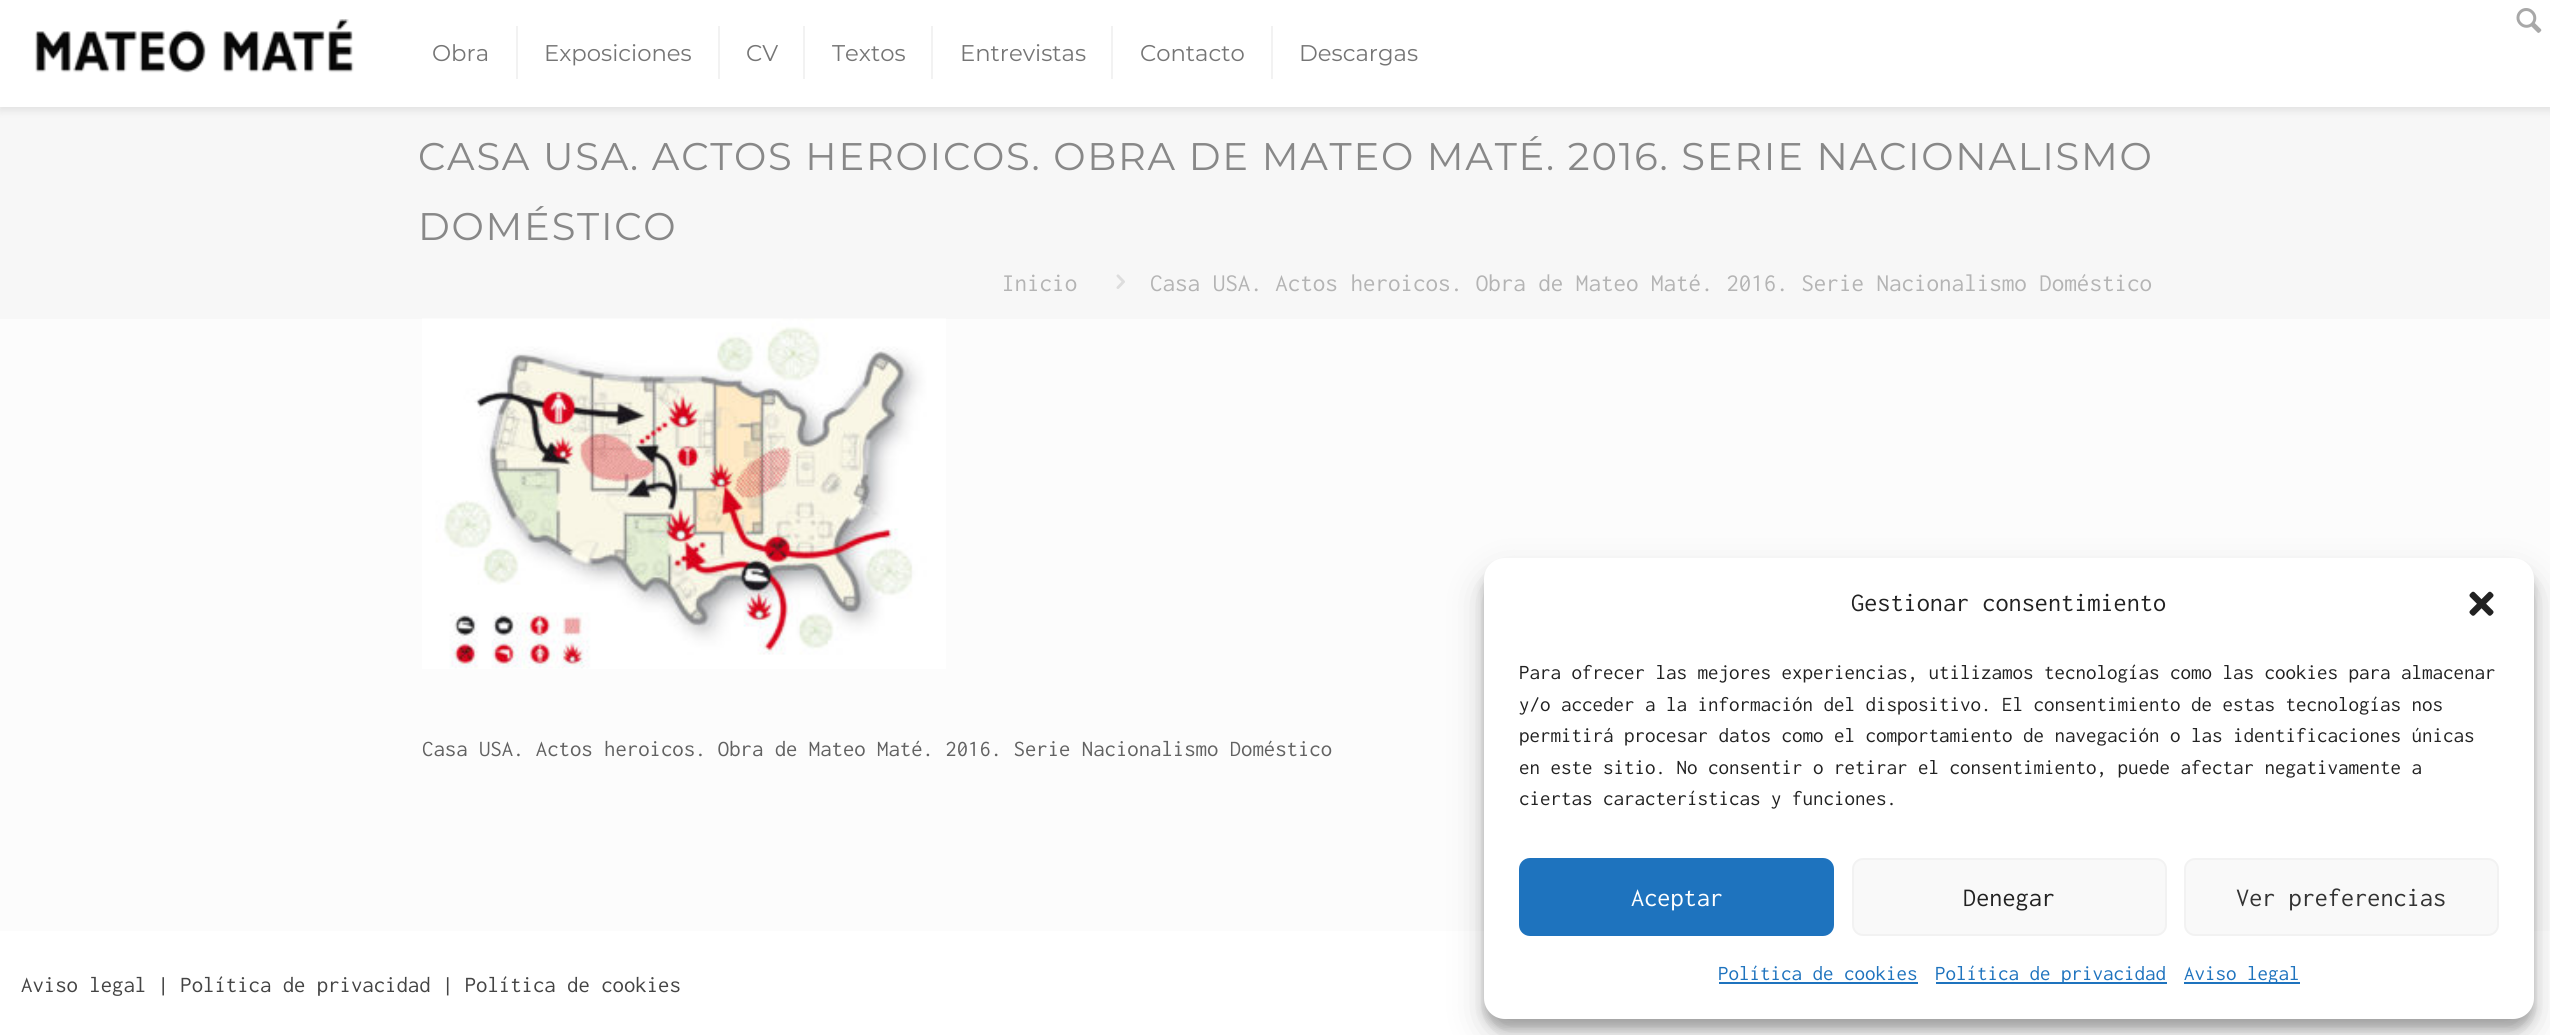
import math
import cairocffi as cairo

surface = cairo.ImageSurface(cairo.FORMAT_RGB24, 2550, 1035)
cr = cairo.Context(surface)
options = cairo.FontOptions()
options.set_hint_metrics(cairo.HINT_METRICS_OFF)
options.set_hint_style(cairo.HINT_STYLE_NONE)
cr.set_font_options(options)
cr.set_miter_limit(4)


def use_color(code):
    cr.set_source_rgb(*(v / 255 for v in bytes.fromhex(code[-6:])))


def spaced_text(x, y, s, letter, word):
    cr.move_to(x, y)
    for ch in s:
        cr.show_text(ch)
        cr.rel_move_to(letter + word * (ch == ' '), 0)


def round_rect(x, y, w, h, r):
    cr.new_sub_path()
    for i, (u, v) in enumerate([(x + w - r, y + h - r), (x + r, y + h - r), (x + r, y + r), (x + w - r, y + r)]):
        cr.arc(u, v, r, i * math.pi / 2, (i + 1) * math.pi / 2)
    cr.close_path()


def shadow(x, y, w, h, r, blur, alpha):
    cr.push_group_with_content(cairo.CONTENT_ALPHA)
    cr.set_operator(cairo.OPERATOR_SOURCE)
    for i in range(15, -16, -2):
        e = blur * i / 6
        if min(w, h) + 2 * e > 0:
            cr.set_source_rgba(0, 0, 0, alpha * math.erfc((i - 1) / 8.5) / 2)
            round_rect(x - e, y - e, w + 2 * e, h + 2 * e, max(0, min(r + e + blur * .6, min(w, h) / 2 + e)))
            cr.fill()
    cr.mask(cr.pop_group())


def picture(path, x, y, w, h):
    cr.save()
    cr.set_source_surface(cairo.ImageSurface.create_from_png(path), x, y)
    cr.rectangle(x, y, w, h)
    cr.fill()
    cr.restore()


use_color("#fcfcfc")
cr.paint()
use_color("#f7f7f7")
cr.rectangle(0, 107, 2550, 212)
cr.fill()
use_color("#000000")
shadow(0, 4, 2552, 106, 0, 4.5, 0.1)
use_color("#ffffff")
cr.rectangle(0, 0, 2550, 107)
cr.fill()
picture("img1.png", 2516, 8, 26, 25)
picture("img2.png", 35, 19, 319, 54)
use_color("#f2f2f2")
cr.rectangle(516, 26, 2, 53)
cr.fill()
cr.select_font_face("Montserrat Thin")
cr.set_font_size(22.75)
use_color("#757575")
cr.move_to(432, 61)
cr.show_text("Obra")
use_color("#f2f2f2")
cr.rectangle(718, 26, 2, 53)
cr.fill()
use_color("#757575")
cr.move_to(544, 61)
cr.show_text("Exposiciones")
use_color("#f2f2f2")
cr.rectangle(803, 26, 2, 53)
cr.fill()
use_color("#757575")
cr.move_to(746, 61)
cr.show_text("CV")
use_color("#f2f2f2")
cr.rectangle(931, 26, 2, 53)
cr.fill()
use_color("#757575")
cr.move_to(832, 61)
cr.show_text("Textos")
use_color("#f2f2f2")
cr.rectangle(1111, 26, 2, 53)
cr.fill()
use_color("#757575")
cr.move_to(960, 61)
cr.show_text("Entrevistas")
use_color("#f2f2f2")
cr.rectangle(1271, 26, 2, 53)
cr.fill()
use_color("#757575")
cr.move_to(1140, 61)
cr.show_text("Contacto")
cr.move_to(1299, 61)
cr.show_text("Descargas")
cr.set_font_size(38.5)
use_color("#888888")
spaced_text(418, 170, "CASA USA. ACTOS HEROICOS. OBRA DE MATEO MATÉ. 2016. SERIE NACIONALISMO", 1.75, 0)
spaced_text(418, 240, "DOMÉSTICO", 1.75, 0)
cr.select_font_face("Inconsolata")
cr.set_font_size(25.05)
use_color("#b4b4b4")
cr.move_to(1002, 291)
cr.show_text("Inicio")
picture("img3.png", 1116, 274, 9, 15)
cr.move_to(1150, 291)
cr.show_text("Casa USA. Actos heroicos. Obra de Mateo Maté. 2016. Serie Nacionalismo Doméstico")
picture("img4.png", 422, 318, 524, 351)
cr.set_font_size(22.75)
use_color("#626262")
cr.move_to(422, 756)
cr.show_text("Casa USA. Actos heroicos. Obra de Mateo Maté. 2016. Serie Nacionalismo Doméstico")
use_color("#ffffff")
cr.rectangle(0, 931, 2550, 104)
cr.fill()
use_color("#444444")
cr.move_to(21, 992)
cr.show_text("Aviso legal | Política de privacidad | Política de cookies")
use_color("#000000")
shadow(1484, 569, 1050, 460, 21, 5, 0.23)
shadow(1484, 576, 1050, 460, 21, 17.5, 0.19)
use_color("#ffffff")
round_rect(1484, 558, 1050, 461, 21)
cr.fill()
cr.set_font_size(26.25)
use_color("#222222")
cr.move_to(1851, 611)
cr.show_text("Gestionar consentimiento")
picture("img5.png", 2469, 591, 25, 25)
cr.set_font_size(21)
cr.move_to(1519, 679)
cr.show_text("Para ofrecer las mejores experiencias, utilizamos tecnologías como las cookies para almacenar")
cr.move_to(1519, 711)
cr.show_text("y/o acceder a la información del dispositivo. El consentimiento de estas tecnologías nos")
cr.move_to(1519, 742)
cr.show_text("permitirá procesar datos como el comportamiento de navegación o las identificaciones únicas")
cr.move_to(1519, 774)
cr.show_text("en este sitio. No consentir o retirar el consentimiento, puede afectar negativamente a")
cr.move_to(1519, 805)
cr.show_text("ciertas características y funciones.")
use_color("#1e73be")
round_rect(1520, 859, 313, 76, 10)
cr.fill_preserve()
cr.stroke()
cr.set_font_size(26.25)
use_color("#ffffff")
cr.move_to(1631, 906)
cr.show_text("Aceptar")
use_color("#f9f9f9")
round_rect(1853, 859, 313, 76, 10)
cr.fill_preserve()
use_color("#f2f2f2")
cr.stroke()
use_color("#222222")
cr.move_to(1963, 906)
cr.show_text("Denegar")
use_color("#f9f9f9")
round_rect(2185, 859, 313, 76, 10)
cr.fill_preserve()
use_color("#f2f2f2")
cr.stroke()
use_color("#333333")
cr.move_to(2236, 906)
cr.show_text("Ver preferencias")
cr.set_font_size(21)
use_color("#1e73be")
cr.move_to(1718, 980)
cr.show_text("Política de cookies")
cr.rectangle(1719, 982, 199, 2)
cr.fill()
cr.rectangle(1936, 982, 231, 2)
cr.fill()
cr.move_to(1935, 980)
cr.show_text("Política de privacidad")
cr.rectangle(2184, 982, 116, 2)
cr.fill()
cr.move_to(2184, 980)
cr.show_text("Aviso legal")
surface.write_to_png("result.png")
